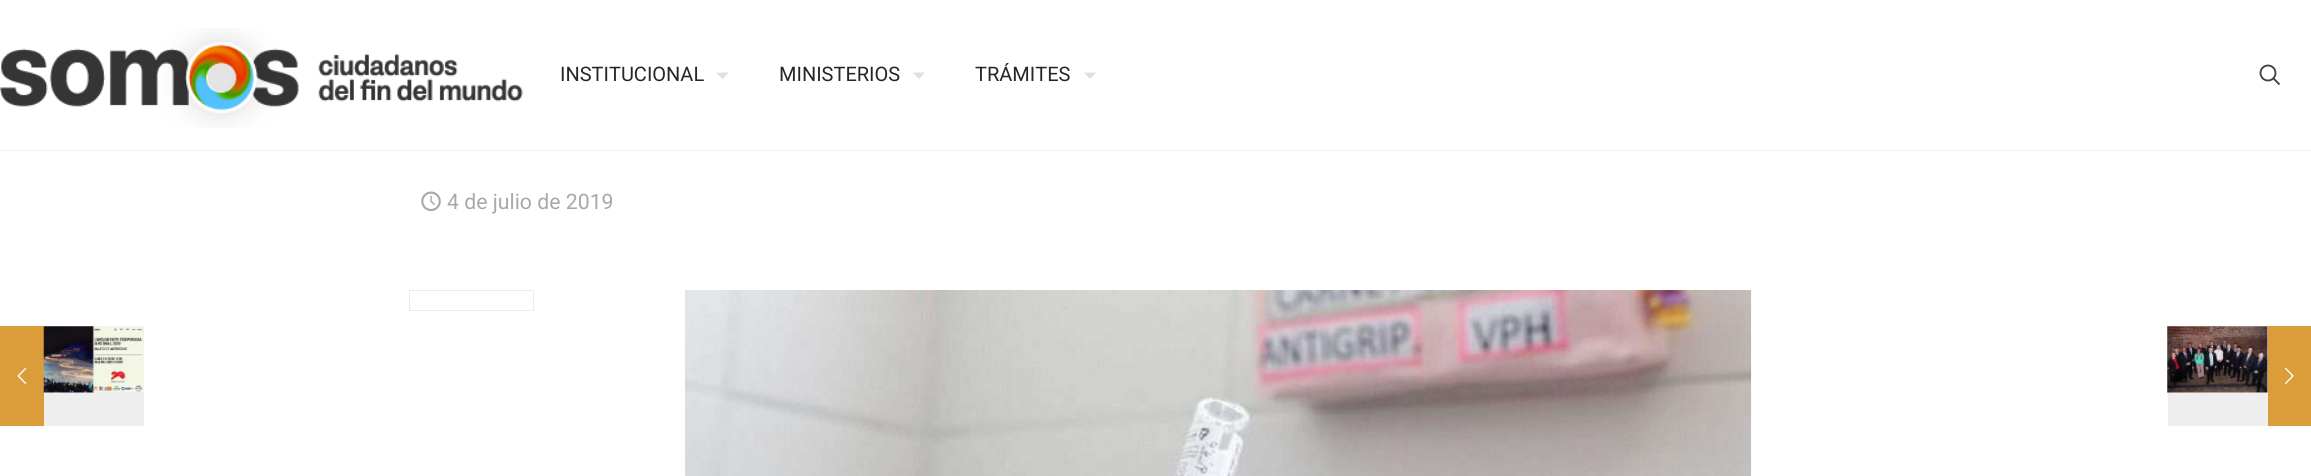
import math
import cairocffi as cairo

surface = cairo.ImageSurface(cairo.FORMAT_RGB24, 2311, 476)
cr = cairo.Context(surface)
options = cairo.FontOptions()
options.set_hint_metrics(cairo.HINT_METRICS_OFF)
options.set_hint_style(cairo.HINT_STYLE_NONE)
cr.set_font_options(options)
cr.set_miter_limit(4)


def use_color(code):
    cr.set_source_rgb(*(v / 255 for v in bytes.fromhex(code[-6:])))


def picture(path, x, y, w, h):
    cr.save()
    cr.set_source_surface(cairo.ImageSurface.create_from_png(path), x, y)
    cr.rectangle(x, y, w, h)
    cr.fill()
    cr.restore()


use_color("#ffffff")
cr.paint()
use_color("#f2f2f2")
cr.rectangle(0, 150, 2311, 1)
cr.fill()
picture("img1.png", 0, 28, 523, 100)
cr.select_font_face("Roboto")
cr.set_font_size(20)
use_color("#262626")
cr.move_to(560, 81)
cr.show_text("INSTITUCIONAL")
use_color("#e0e0e0")
cr.new_path()
cr.move_to(716, 72.5)
cr.line_to(729, 72.5)
cr.line_to(722.5, 79)
cr.close_path()
cr.fill()
use_color("#262626")
cr.move_to(779, 81)
cr.show_text("MINISTERIOS")
use_color("#e0e0e0")
cr.new_path()
cr.move_to(912.5, 72.5)
cr.line_to(925, 72.5)
cr.line_to(919, 79)
cr.close_path()
cr.fill()
use_color("#262626")
cr.move_to(975, 81)
cr.show_text("TRÁMITES")
use_color("#e0e0e0")
cr.new_path()
cr.move_to(1084, 72.5)
cr.line_to(1096, 72.5)
cr.line_to(1090, 79)
cr.close_path()
cr.fill()
cr.arc(2268, 73, 7.5, 0, 2 * math.pi)
use_color("#444444")
cr.set_line_width(1.9)
cr.stroke()
cr.new_path()
cr.move_to(2273, 78)
cr.line_to(2279.5, 84.5)
cr.stroke()
picture("img2.png", 421, 191, 20, 20)
cr.set_font_size(21.25)
use_color("#a8a8a8")
cr.move_to(447, 209)
cr.show_text("4 de julio de 2019")
cr.rectangle(409.5, 290.5, 124, 20)
use_color("#ebebeb")
cr.set_line_width(1)
cr.stroke()
picture("img3.png", 685, 290, 1067, 186)
use_color("#db9d3a")
cr.rectangle(0, 326, 44, 100)
cr.fill()
picture("img4.png", 17, 367, 10, 17)
use_color("#eeeeee")
cr.rectangle(44, 326, 100, 100)
cr.fill()
picture("img5.png", 43, 326, 101, 67)
picture("img6.png", 2167, 326, 1, 67)
cr.rectangle(2168, 326, 100, 100)
cr.fill()
picture("img7.png", 2167, 326, 101, 67)
use_color("#db9d3a")
cr.rectangle(2268, 326, 43, 100)
cr.fill()
picture("img8.png", 2285, 367, 9, 17)
surface.write_to_png("result.png")
